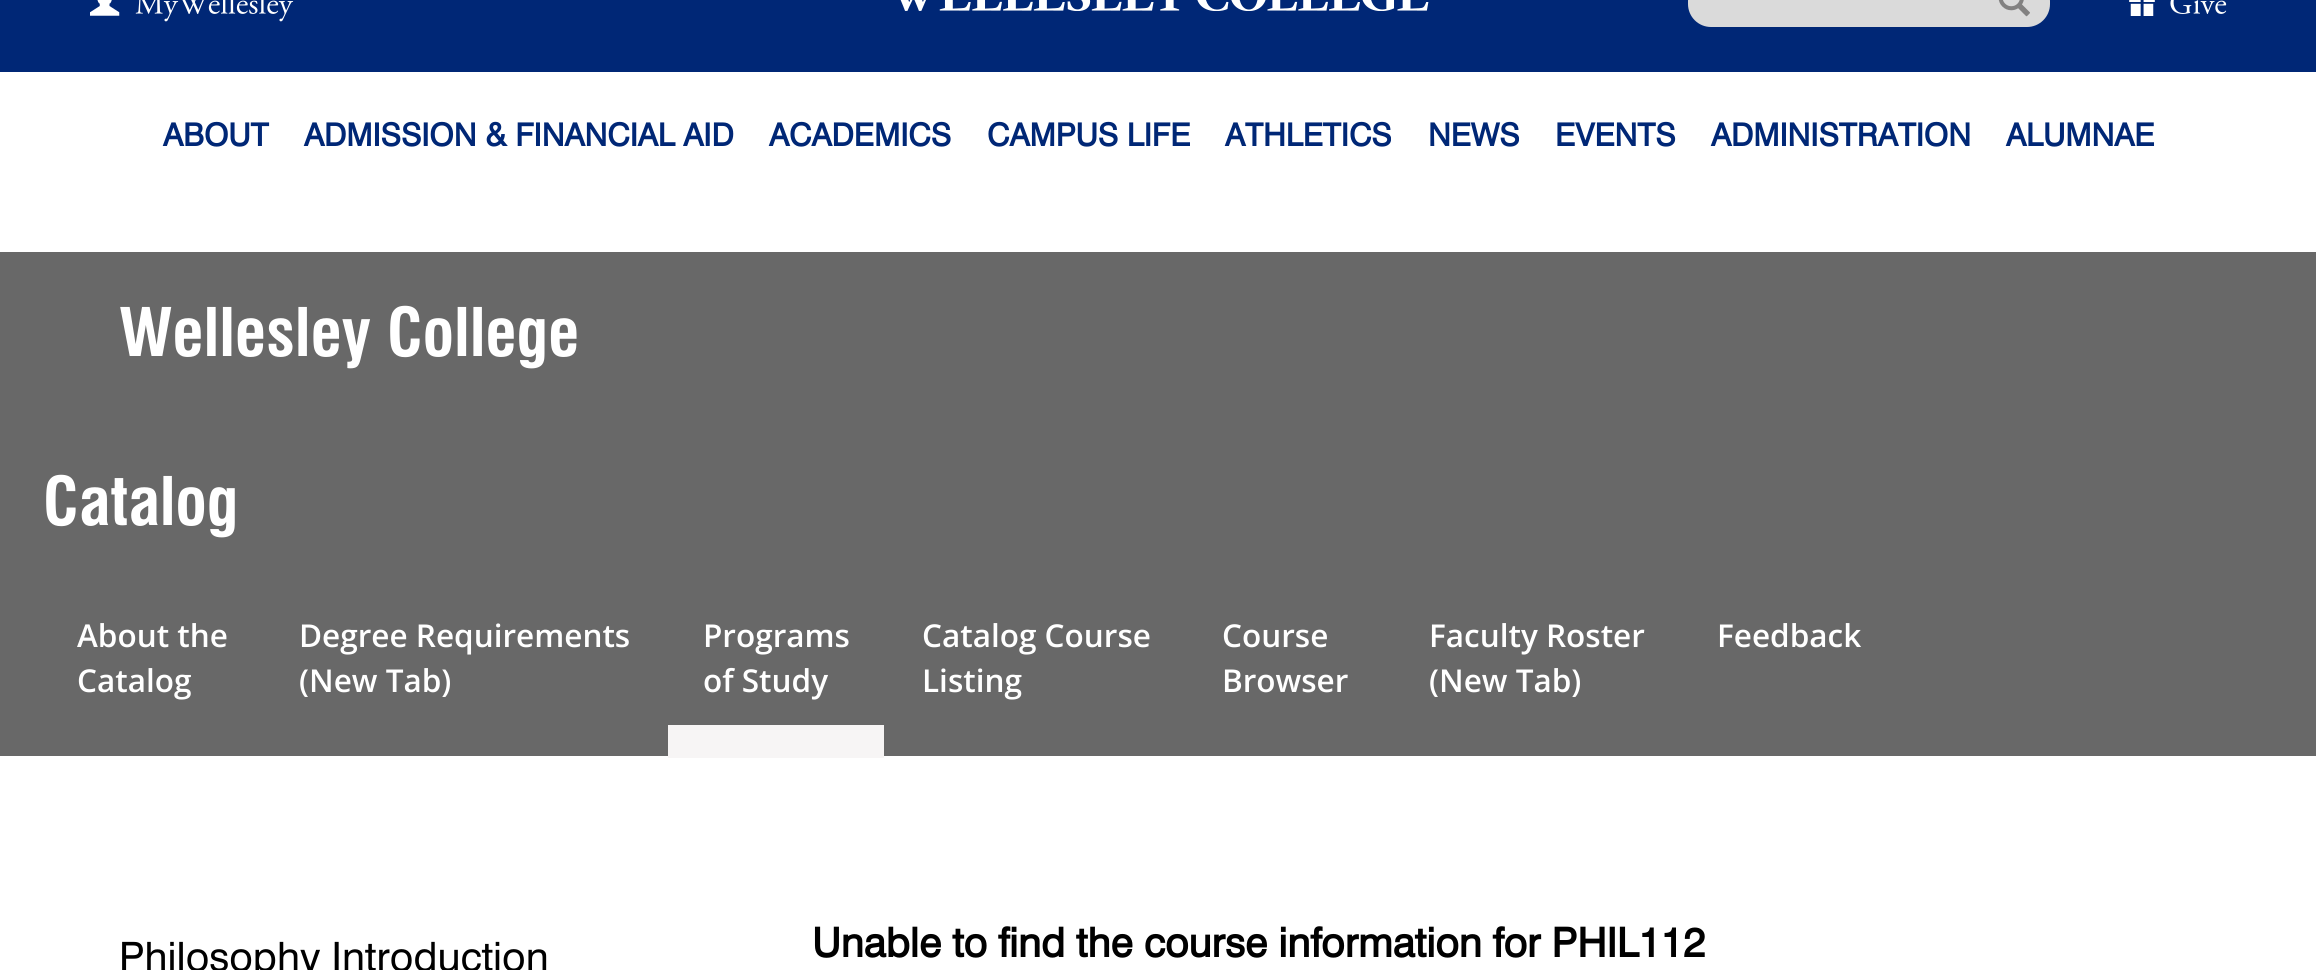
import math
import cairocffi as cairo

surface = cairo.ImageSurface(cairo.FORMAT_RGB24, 2316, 970)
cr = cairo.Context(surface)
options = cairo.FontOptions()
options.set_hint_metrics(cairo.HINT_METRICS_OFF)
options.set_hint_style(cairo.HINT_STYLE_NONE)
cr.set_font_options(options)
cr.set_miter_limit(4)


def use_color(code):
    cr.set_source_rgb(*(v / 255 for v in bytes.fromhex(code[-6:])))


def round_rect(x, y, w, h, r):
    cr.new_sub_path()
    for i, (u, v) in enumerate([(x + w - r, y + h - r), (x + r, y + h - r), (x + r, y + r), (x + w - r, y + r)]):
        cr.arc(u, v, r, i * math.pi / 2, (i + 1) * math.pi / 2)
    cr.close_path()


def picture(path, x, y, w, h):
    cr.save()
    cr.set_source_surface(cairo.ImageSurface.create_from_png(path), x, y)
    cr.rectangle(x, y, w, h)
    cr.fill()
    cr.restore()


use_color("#ffffff")
cr.paint()
use_color("#002776")
cr.rectangle(0, 0, 2316, 72)
cr.fill()
picture("img1.png", 90, 0, 30, 16)
picture("img2.png", 135, 0, 159, 22)
picture("img3.png", 900, 0, 529, 11)
use_color("#dadada")
round_rect(1688, -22, 362, 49, 23)
cr.fill()
picture("img4.png", 1998, 0, 32, 17)
picture("img5.png", 2129, 0, 26, 16)
picture("img6.png", 2170, 0, 57, 14)
cr.select_font_face("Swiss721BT", cairo.FONT_SLANT_NORMAL, cairo.FONT_WEIGHT_BOLD)
cr.set_font_size(31.5)
use_color("#002776")
cr.move_to(163, 146)
cr.show_text("ABOUT")
cr.move_to(304, 146)
cr.show_text("ADMISSION & FINANCIAL AID")
cr.move_to(769, 146)
cr.show_text("ACADEMICS")
cr.move_to(987, 146)
cr.show_text("CAMPUS LIFE")
cr.move_to(1225, 146)
cr.show_text("ATHLETICS")
cr.move_to(1428, 146)
cr.show_text("NEWS")
cr.move_to(1555, 146)
cr.show_text("EVENTS")
cr.move_to(1711, 146)
cr.show_text("ADMINISTRATION")
cr.move_to(2006, 146)
cr.show_text("ALUMNAE")
use_color("#686868")
cr.rectangle(0, 252, 2316, 504)
cr.fill()
cr.select_font_face("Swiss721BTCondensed")
cr.set_font_size(65.25)
use_color("#ffffff")
cr.move_to(119, 356)
cr.show_text("Wellesley College")
cr.move_to(43, 525)
cr.show_text("Catalog")
cr.select_font_face("Open Sans SemiBold")
cr.set_font_size(31.5)
cr.move_to(77, 647)
cr.show_text("About the")
cr.move_to(77, 692)
cr.show_text("Catalog")
cr.move_to(299, 647)
cr.show_text("Degree Requirements")
cr.move_to(299, 692)
cr.show_text("(New Tab)")
use_color("#f7f5f5")
cr.rectangle(668, 725, 216, 33)
cr.fill()
use_color("#ffffff")
cr.move_to(703, 647)
cr.show_text("Programs")
cr.move_to(703, 692)
cr.show_text("of Study")
cr.move_to(922, 647)
cr.show_text("Catalog Course")
cr.move_to(922, 692)
cr.show_text("Listing")
cr.move_to(1222, 647)
cr.show_text("Course")
cr.move_to(1222, 692)
cr.show_text("Browser")
cr.move_to(1429, 647)
cr.show_text("Faculty Roster")
cr.move_to(1429, 692)
cr.show_text("(New Tab)")
cr.move_to(1717, 647)
cr.show_text("Feedback")
cr.select_font_face("Swiss721BT")
cr.set_font_size(40.5)
use_color("#000000")
cr.move_to(119, 971)
cr.show_text("Philosophy Introduction")
cr.select_font_face("Swiss721BT", cairo.FONT_SLANT_NORMAL, cairo.FONT_WEIGHT_BOLD)
cr.move_to(812, 957)
cr.show_text("Unable to find the course information for PHIL112")
surface.write_to_png("result.png")
